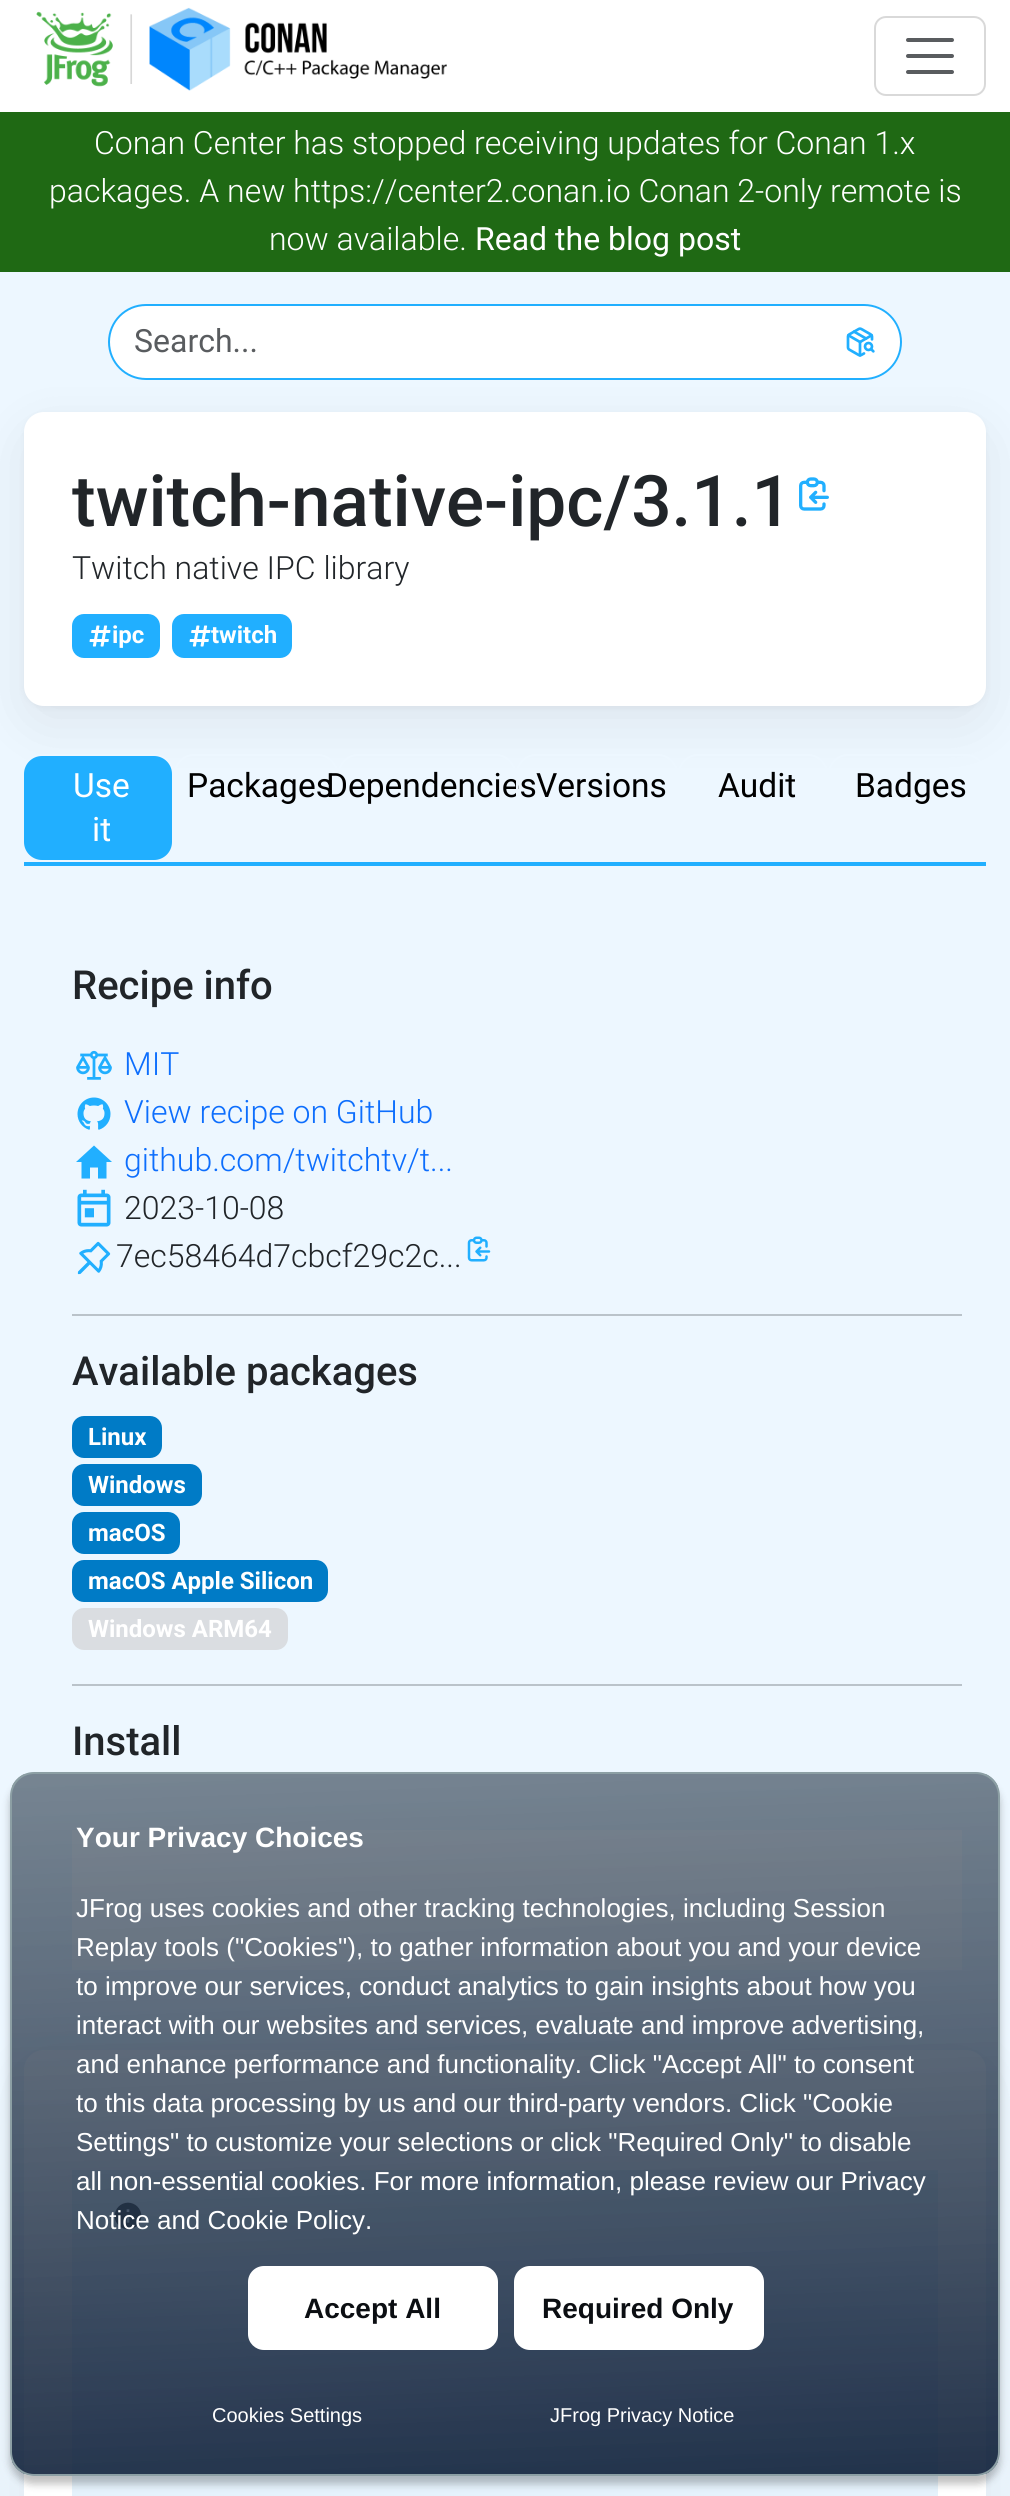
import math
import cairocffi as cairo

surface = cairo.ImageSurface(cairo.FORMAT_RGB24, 1010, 2496)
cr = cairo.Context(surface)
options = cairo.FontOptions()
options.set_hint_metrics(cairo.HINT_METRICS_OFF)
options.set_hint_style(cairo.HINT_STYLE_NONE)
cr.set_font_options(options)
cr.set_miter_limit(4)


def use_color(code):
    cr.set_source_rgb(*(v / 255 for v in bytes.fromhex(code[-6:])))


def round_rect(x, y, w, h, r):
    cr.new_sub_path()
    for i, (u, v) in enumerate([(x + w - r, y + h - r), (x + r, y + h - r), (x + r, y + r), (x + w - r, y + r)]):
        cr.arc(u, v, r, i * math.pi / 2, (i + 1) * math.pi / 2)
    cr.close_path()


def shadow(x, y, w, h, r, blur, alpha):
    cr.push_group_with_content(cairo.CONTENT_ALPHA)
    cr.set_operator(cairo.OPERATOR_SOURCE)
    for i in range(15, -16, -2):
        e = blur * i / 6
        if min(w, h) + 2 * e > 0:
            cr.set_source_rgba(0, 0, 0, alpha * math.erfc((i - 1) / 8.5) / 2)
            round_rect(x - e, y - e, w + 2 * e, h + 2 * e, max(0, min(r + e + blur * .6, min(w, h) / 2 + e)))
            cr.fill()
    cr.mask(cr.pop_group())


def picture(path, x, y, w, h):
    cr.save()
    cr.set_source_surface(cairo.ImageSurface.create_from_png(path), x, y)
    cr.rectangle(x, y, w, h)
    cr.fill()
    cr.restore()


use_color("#edf7ff")
cr.paint()
use_color("#ffffff")
cr.rectangle(0, 0, 1010, 112)
cr.fill()
picture("img1.png", 36, 7, 411, 84)
round_rect(875, 17, 110, 78, 11)
use_color("#d9d9d9")
cr.stroke()
cr.new_path()
cr.move_to(908, 40)
cr.line_to(952, 40)
cr.move_to(908, 56)
cr.line_to(952, 56)
cr.move_to(908, 72)
cr.line_to(952, 72)
use_color("#595c5f")
cr.set_line_width(4)
cr.set_line_cap(cairo.LINE_CAP_ROUND)
cr.stroke()
use_color("#1f6914")
cr.rectangle(0, 112, 1010, 160)
cr.fill()
cr.select_font_face("Roboto Light")
cr.set_font_size(32)
use_color("#ffffff")
cr.move_to(94, 154)
cr.show_text("Conan Center has stopped receiving updates for Conan 1.x")
cr.move_to(49, 202)
cr.show_text("packages. A new https://center2.conan.io Conan 2-only remote is")
cr.move_to(269, 250)
cr.show_text("now available.")
cr.select_font_face("Roboto")
cr.move_to(475, 250)
cr.show_text("Read the blog post")
use_color("#000000")
shadow(24, 430, 962, 294, 20, 29, 0.07)
use_color("#ffffff")
cr.new_path()
cr.move_to(146, 306)
cr.line_to(824, 306)
cr.line_to(824, 378)
cr.line_to(146, 378)
cr.curve_to(126, 378, 110, 362, 110, 342)
cr.curve_to(110, 322, 126, 306, 146, 306)
cr.close_path()
cr.fill()
use_color("#21afff")
cr.set_fill_rule(cairo.FILL_RULE_EVEN_ODD)
cr.new_path()
cr.move_to(146, 304)
cr.line_to(824, 304)
cr.line_to(824, 380)
cr.line_to(146, 380)
cr.curve_to(125, 380, 108, 363, 108, 342)
cr.curve_to(108, 321, 125, 304, 146, 304)
cr.close_path()
cr.move_to(146, 306)
cr.line_to(824, 306)
cr.line_to(824, 378)
cr.line_to(146, 378)
cr.curve_to(126, 378, 110, 362, 110, 342)
cr.curve_to(110, 322, 126, 306, 146, 306)
cr.close_path()
cr.fill()
use_color("#595c5f")
cr.move_to(134, 352)
cr.show_text("Search...")
use_color("#ffffff")
cr.new_path()
cr.move_to(822, 304)
cr.line_to(864, 304)
cr.curve_to(885, 304, 902, 321, 902, 342)
cr.curve_to(902, 363, 885, 380, 864, 380)
cr.line_to(822, 380)
cr.close_path()
cr.fill()
use_color("#21afff")
cr.new_path()
cr.move_to(822, 304)
cr.line_to(864, 304)
cr.curve_to(885, 304, 902, 321, 902, 342)
cr.curve_to(902, 363, 885, 380, 864, 380)
cr.line_to(822, 380)
cr.close_path()
cr.move_to(822, 306)
cr.line_to(864, 306)
cr.curve_to(884, 306, 900, 322, 900, 342)
cr.curve_to(900, 362, 884, 378, 864, 378)
cr.line_to(822, 378)
cr.close_path()
cr.fill()
picture("img2.png", 846, 327, 29, 30)
use_color("#000000")
shadow(24, 414, 962, 294, 20, 3.5, 0.04)
use_color("#ffffff")
round_rect(24, 412, 962, 294, 20)
cr.fill()
cr.select_font_face("Roboto Medium")
cr.set_font_size(71.1)
use_color("#212529")
cr.move_to(72, 526)
cr.show_text("twitch-native-ipc/3.1.1")
picture("img3.png", 799, 477, 30, 34)
cr.select_font_face("Roboto Light")
cr.set_font_size(32)
cr.move_to(72, 579)
cr.show_text("Twitch native IPC library")
use_color("#21afff")
round_rect(72, 614, 88, 44, 12)
cr.fill()
picture("img4.png", 89, 625, 22, 22)
cr.select_font_face("Roboto", cairo.FONT_SLANT_NORMAL, cairo.FONT_WEIGHT_BOLD)
cr.set_font_size(24)
use_color("#ffffff")
cr.move_to(112, 643)
cr.show_text("ipc")
use_color("#21afff")
round_rect(172, 614, 120, 44, 12)
cr.fill()
picture("img4.png", 189, 625, 22, 22)
use_color("#ffffff")
cr.move_to(211, 643)
cr.show_text("twitch")
use_color("#21afff")
cr.rectangle(24, 862, 962, 4)
cr.fill()
round_rect(23, 755, 150, 106, 19)
cr.fill_preserve()
use_color("#edf7ff")
cr.set_line_width(2)
cr.set_line_cap(cairo.LINE_CAP_BUTT)
cr.stroke()
cr.select_font_face("Roboto")
cr.set_font_size(33.5)
use_color("#ffffff")
cr.move_to(73, 797)
cr.show_text("Use")
cr.move_to(92, 841)
cr.show_text("it")
round_rect(175, 755, 162, 62, 19)
use_color("#edf7ff")
cr.stroke()
use_color("#000000")
cr.move_to(187, 797)
cr.show_text("Packages")
round_rect(339, 755, 176, 62, 19)
use_color("#edf7ff")
cr.stroke()
use_color("#000000")
cr.move_to(326, 797)
cr.show_text("Dependencies")
round_rect(517, 755, 160, 62, 19)
use_color("#edf7ff")
cr.stroke()
use_color("#000000")
cr.move_to(536, 797)
cr.show_text("Versions")
round_rect(679, 755, 148, 62, 19)
use_color("#edf7ff")
cr.stroke()
use_color("#000000")
cr.move_to(718, 797)
cr.show_text("Audit")
round_rect(829, 755, 156, 62, 19)
use_color("#edf7ff")
cr.stroke()
use_color("#000000")
cr.move_to(855, 797)
cr.show_text("Badges")
cr.select_font_face("Roboto Medium")
cr.set_font_size(40)
use_color("#212529")
cr.move_to(72, 999)
cr.show_text("Recipe info")
picture("img5.png", 76, 1050, 36, 30)
cr.select_font_face("Roboto Light")
cr.set_font_size(32)
use_color("#0d6efd")
cr.move_to(124, 1075)
cr.show_text("MIT")
picture("img6.png", 77, 1097, 34, 33)
cr.move_to(124, 1123)
cr.show_text("View recipe on GitHub")
use_color("#21afff")
cr.set_fill_rule(cairo.FILL_RULE_WINDING)
cr.new_path()
cr.move_to(90, 1178.5)
cr.line_to(90, 1167.5)
cr.line_to(98, 1167.5)
cr.line_to(98, 1178.5)
cr.line_to(106.5, 1178.5)
cr.line_to(106.5, 1162)
cr.line_to(112, 1162)
cr.line_to(94, 1145.5)
cr.line_to(76, 1162)
cr.line_to(81.5, 1162)
cr.line_to(81.5, 1178.5)
cr.close_path()
cr.fill()
use_color("#0d6efd")
cr.move_to(124, 1171)
cr.show_text("github.com/twitchtv/t...")
picture("img7.png", 77, 1189, 34, 38)
use_color("#212529")
cr.move_to(124, 1219)
cr.show_text("2023-10-08")
picture("img8.png", 77, 1241, 34, 34)
cr.move_to(116, 1267)
cr.show_text("7ec58464d7cbcf29c2c...")
picture("img9.png", 467, 1236, 24, 26)
use_color("#bac3ca")
cr.rectangle(72, 1314, 890, 2)
cr.fill()
cr.select_font_face("Roboto Medium")
cr.set_font_size(40)
use_color("#212529")
cr.move_to(72, 1385)
cr.show_text("Available packages")
use_color("#007bc6")
round_rect(72, 1416, 90, 42, 12)
cr.fill()
cr.select_font_face("Roboto", cairo.FONT_SLANT_NORMAL, cairo.FONT_WEIGHT_BOLD)
cr.set_font_size(24)
use_color("#ffffff")
cr.move_to(88, 1445)
cr.show_text("Linux")
use_color("#007bc6")
round_rect(72, 1464, 130, 42, 12)
cr.fill()
use_color("#ffffff")
cr.move_to(88, 1493)
cr.show_text("Windows")
use_color("#007bc6")
round_rect(72, 1512, 108, 42, 12)
cr.fill()
use_color("#ffffff")
cr.move_to(88, 1541)
cr.show_text("macOS")
use_color("#007bc6")
round_rect(72, 1560, 256, 42, 12)
cr.fill()
use_color("#ffffff")
cr.move_to(88, 1589)
cr.show_text("macOS Apple Silicon")
use_color("#dadde1")
round_rect(72, 1608, 216, 42, 12)
cr.fill()
use_color("#ffffff")
cr.move_to(88, 1637)
cr.show_text("Windows ARM64")
use_color("#bac3ca")
cr.rectangle(72, 1684, 890, 2)
cr.fill()
cr.select_font_face("Roboto Medium")
cr.set_font_size(40)
use_color("#212529")
cr.move_to(72, 1755)
cr.show_text("Install")
use_color("#ffffff")
cr.rectangle(72, 1830, 890, 140)
cr.fill()
use_color("#000000")
shadow(24, 2068, 962, 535, 20, 29, 0.07)
use_color("#ffffff")
round_rect(24, 2050, 962, 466, 20)
cr.fill()
use_color("#e5f2fc")
cr.rectangle(72, 2170, 866, 326)
cr.fill()
picture("img10.png", 114, 2202, 28, 28)
cr.save()
cr.set_fill_rule(cairo.FILL_RULE_EVEN_ODD)
cr.new_path()
cr.move_to(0, 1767)
cr.line_to(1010, 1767)
cr.line_to(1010, 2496)
cr.line_to(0, 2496)
cr.close_path()
cr.move_to(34, 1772)
cr.line_to(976, 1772)
cr.curve_to(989.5, 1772, 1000, 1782.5, 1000, 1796)
cr.line_to(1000, 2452)
cr.curve_to(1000, 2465.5, 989.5, 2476, 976, 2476)
cr.line_to(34, 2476)
cr.curve_to(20.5, 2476, 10, 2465.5, 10, 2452)
cr.line_to(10, 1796)
cr.curve_to(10, 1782.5, 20.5, 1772, 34, 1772)
cr.close_path()
cr.clip()
use_color("#000000")
shadow(10, 1780, 990, 704, 24, 4, 0.25)
cr.restore()
cr.save()
round_rect(10, 1772, 990, 704, 24)
cr.clip()
gradient = cairo.LinearGradient(492, 1757, 518, 2491)
gradient.add_color_stop_rgba(0, 0.263, 0.325, 0.388, 0.7)
gradient.add_color_stop_rgba(1, 0.047, 0.114, 0.216, 0.9)
cr.set_source(gradient)
cr.rectangle(12, 1774, 986, 700)
cr.fill()
cr.restore()
round_rect(11, 1773, 988, 702, 23)
use_color("#8c9fa4")
cr.stroke()
cr.select_font_face("Liberation Sans", cairo.FONT_SLANT_NORMAL, cairo.FONT_WEIGHT_BOLD)
cr.set_font_size(28)
use_color("#ffffff")
cr.move_to(76, 1847)
cr.show_text("Your Privacy Choices")
cr.select_font_face("Liberation Sans")
cr.set_font_size(26)
cr.move_to(76, 1917)
cr.show_text("JFrog uses cookies and other tracking technologies, including Session")
cr.move_to(76, 1956)
cr.show_text("Replay tools (\"Cookies\"), to gather information about you and your device")
cr.move_to(76, 1995)
cr.show_text("to improve our services, conduct analytics to gain insights about how you")
cr.move_to(76, 2034)
cr.show_text("interact with our websites and services, evaluate and improve advertising,")
cr.move_to(76, 2073)
cr.show_text("and enhance performance and functionality. Click \"Accept All\" to consent")
cr.move_to(76, 2112)
cr.show_text("to this data processing by us and our third-party vendors. Click \"Cookie")
cr.move_to(76, 2151)
cr.show_text("Settings\" to customize your selections or click \"Required Only\" to disable")
cr.move_to(76, 2190)
cr.show_text("all non-essential cookies. For more information, please review our Privacy")
cr.move_to(76, 2229)
cr.show_text("Notice and Cookie Policy.")
round_rect(248, 2266, 250, 84, 16)
cr.fill()
cr.select_font_face("Liberation Sans", cairo.FONT_SLANT_NORMAL, cairo.FONT_WEIGHT_BOLD)
cr.set_font_size(28)
use_color("#0b0e12")
cr.move_to(304, 2318)
cr.show_text("Accept All")
use_color("#ffffff")
round_rect(514, 2266, 250, 84, 16)
cr.fill()
use_color("#0b0e12")
cr.move_to(542, 2318)
cr.show_text("Required Only")
cr.select_font_face("Liberation Sans")
cr.set_font_size(20)
use_color("#ffffff")
cr.move_to(212, 2422)
cr.show_text("Cookies Settings")
cr.move_to(550, 2422)
cr.show_text("JFrog Privacy Notice")
surface.write_to_png("result.png")
